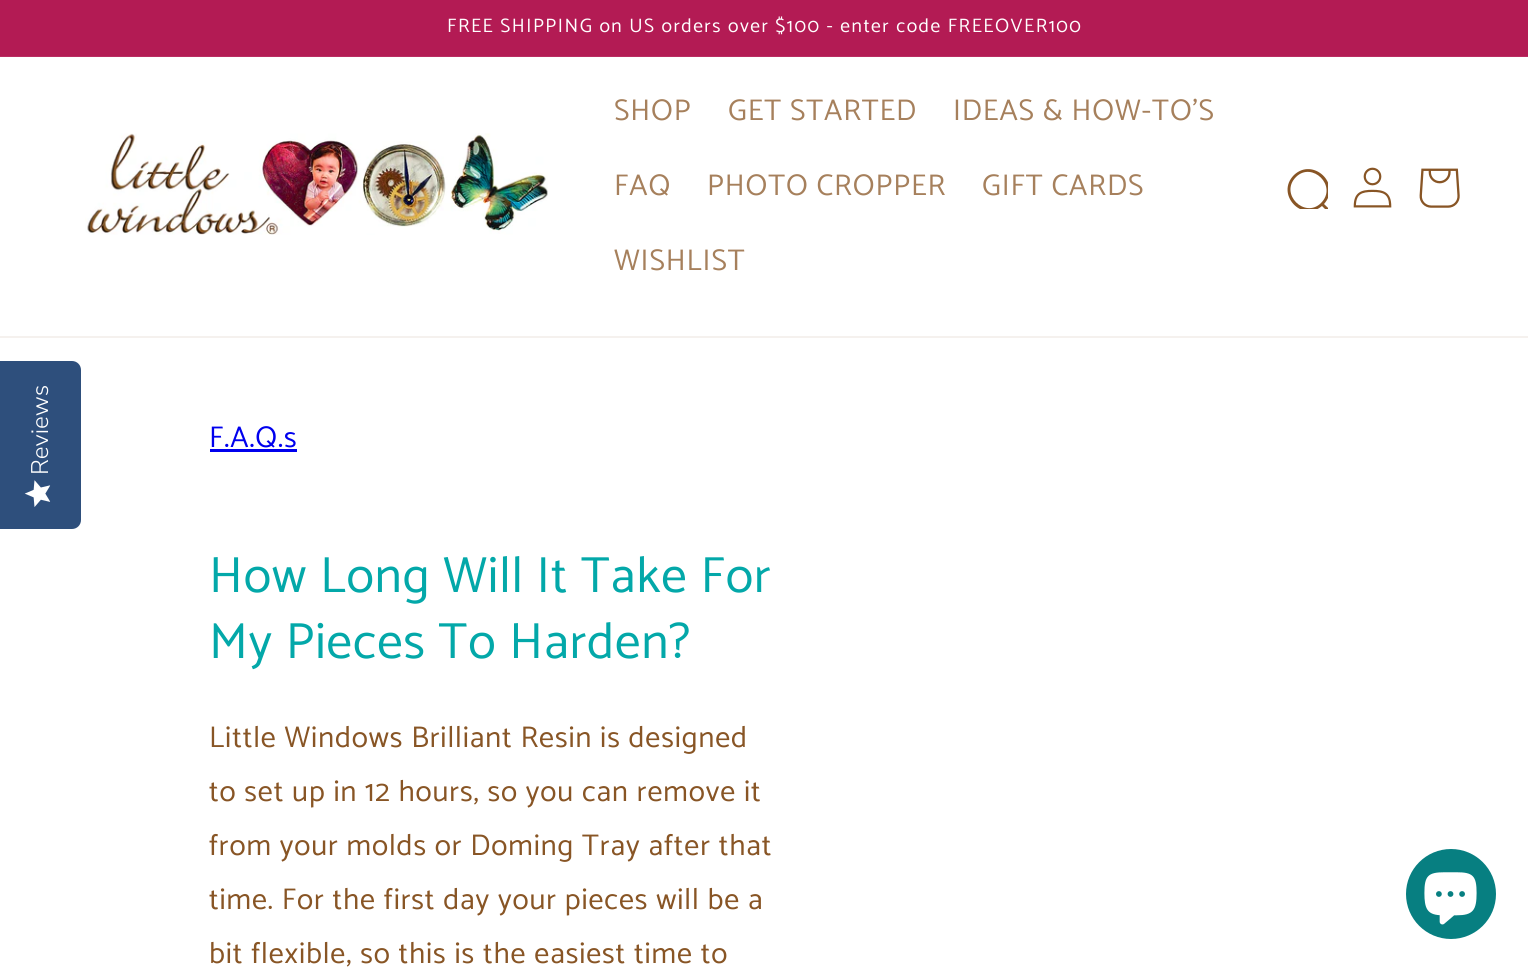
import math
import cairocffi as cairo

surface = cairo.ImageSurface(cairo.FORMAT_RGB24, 1528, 970)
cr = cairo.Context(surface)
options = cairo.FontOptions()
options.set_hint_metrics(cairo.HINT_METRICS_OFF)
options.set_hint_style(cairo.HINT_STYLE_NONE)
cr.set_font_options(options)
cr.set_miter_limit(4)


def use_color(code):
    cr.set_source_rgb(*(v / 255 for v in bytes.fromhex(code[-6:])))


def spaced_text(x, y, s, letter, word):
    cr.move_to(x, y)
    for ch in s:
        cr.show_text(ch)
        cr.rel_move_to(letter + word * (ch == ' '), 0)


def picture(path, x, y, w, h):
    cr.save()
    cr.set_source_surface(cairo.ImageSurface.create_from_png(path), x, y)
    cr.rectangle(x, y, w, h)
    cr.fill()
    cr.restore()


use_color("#ffffff")
cr.paint()
use_color("#b31b54")
cr.rectangle(0, 0, 1528, 56)
cr.fill()
use_color("#b92d62")
cr.rectangle(0, 56, 1528, 1)
cr.fill()
cr.select_font_face("Catamaran")
cr.set_font_size(19.5)
use_color("#ffffff")
spaced_text(447, 32, "FREE SHIPPING on US orders over $100 - enter code FREEOVER100", 1.5, 0)
use_color("#f5f1ee")
cr.rectangle(0, 336, 1528, 2)
cr.fill()
picture("img1.png", 85, 133, 463, 102)
cr.set_font_size(30)
use_color("#a6805c")
spaced_text(614, 120, "SHOP", 0.9, 0)
spaced_text(728, 120, "GET STARTED", 0.9, 0)
spaced_text(953, 120, "IDEAS & HOW-TO'S", 0.9, 0)
spaced_text(614, 195, "FAQ", 0.9, 0)
spaced_text(707, 195, "PHOTO CROPPER", 0.9, 0)
spaced_text(982, 195, "GIFT CARDS", 0.9, 0)
spaced_text(614, 270, "WISHLIST", 0.9, 0)
cr.save()
cr.rectangle(1286, 167, 42, 42)
cr.clip()
use_color("#885525")
cr.set_fill_rule(cairo.FILL_RULE_EVEN_ODD)
cr.new_path()
cr.move_to(1321, 203)
cr.curve_to(1305, 219, 1279, 194, 1296, 177)
cr.curve_to(1312, 161, 1338, 186, 1321, 203)
cr.close_path()
cr.move_to(1322, 206)
cr.curve_to(1302, 223, 1275, 194, 1294, 175)
cr.curve_to(1313, 157, 1342, 184, 1324, 204)
cr.curve_to(1326, 206, 1341, 220, 1341, 222)
cr.line_to(1341, 223)
cr.curve_to(1338, 225, 1334, 218, 1333, 217)
cr.close_path()
cr.fill()
cr.restore()
picture("img2.png", 1353, 167, 39, 41)
picture("img3.png", 1419, 168, 41, 40)
use_color("#2e4f7c")
cr.new_path()
cr.move_to(0, 529)
cr.line_to(0, 361)
cr.line_to(72, 361)
cr.curve_to(77, 361, 81, 365, 81, 370)
cr.line_to(81, 520)
cr.curve_to(81, 525, 77, 529, 72, 529)
cr.close_path()
cr.fill()
cr.select_font_face("Nunito Sans Light")
cr.set_font_size(24)
use_color("#ffffff")
cr.save()
cr.translate(48, 475)
cr.rotate(-90 * math.pi / 180)
cr.move_to(0, 0)
cr.show_text("Reviews")
cr.restore()
picture("img4.png", 24, 480, 27, 27)
cr.select_font_face("Catamaran")
cr.set_font_size(30)
use_color("#0000ee")
spaced_text(209, 447, "F.A.Q.s", 0.9, 0)
cr.rectangle(210, 449, 87, 3)
cr.fill()
cr.set_font_size(51)
use_color("#03a8a9")
spaced_text(209, 592, "How Long Will It Take For", 0.9, 0)
spaced_text(209, 658, "My Pieces To Harden?", 0.9, 0)
cr.set_font_size(30)
use_color("#885525")
spaced_text(209, 747, "Little Windows Brilliant Resin is designed", 0.9, 0)
spaced_text(209, 801, "to set up in 12 hours, so you can remove it", 0.9, 0)
spaced_text(209, 855, "from your molds or Doming Tray after that", 0.9, 0)
spaced_text(209, 909, "time. For the first day your pieces will be a", 0.9, 0)
spaced_text(209, 963, "bit flexible, so this is the easiest time to", 0.9, 0)
use_color("#077f81")
cr.new_path()
cr.arc(1451, 894, 45, 0, 2 * math.pi)
cr.fill()
picture("img5.png", 1424, 872, 53, 53)
surface.write_to_png("result.png")
